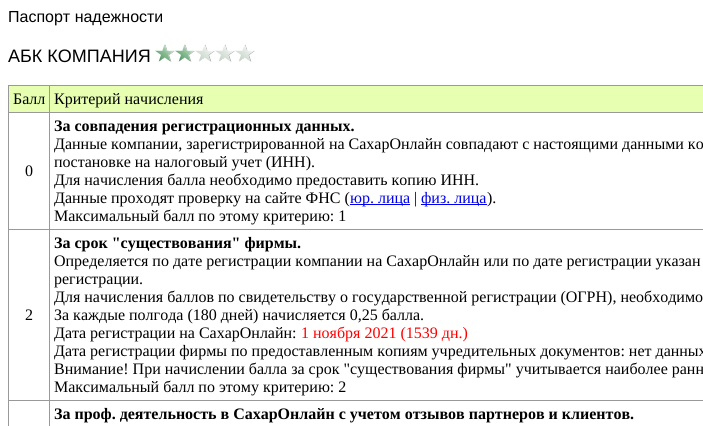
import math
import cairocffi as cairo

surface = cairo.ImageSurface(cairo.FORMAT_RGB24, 703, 426)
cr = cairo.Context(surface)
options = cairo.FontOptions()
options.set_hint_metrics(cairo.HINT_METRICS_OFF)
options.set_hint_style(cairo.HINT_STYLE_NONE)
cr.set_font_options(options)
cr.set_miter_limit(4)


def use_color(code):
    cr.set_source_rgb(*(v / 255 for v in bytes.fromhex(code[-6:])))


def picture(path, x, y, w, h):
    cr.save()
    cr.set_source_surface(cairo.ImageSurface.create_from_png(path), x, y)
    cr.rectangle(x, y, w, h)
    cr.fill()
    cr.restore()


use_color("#ffffff")
cr.paint()
cr.select_font_face("Liberation Sans")
cr.set_font_size(16)
use_color("#000000")
cr.move_to(8, 22)
cr.show_text("Паспорт надежности")
cr.set_font_size(18)
cr.move_to(8, 62)
cr.show_text("АБК КОМПАНИЯ")
picture("img1.png", 194, 44, 61, 18)
picture("img2.png", 155, 44, 39, 18)
use_color("#999999")
cr.rectangle(8, 85, 695, 1)
cr.fill()
cr.rectangle(8, 85, 1, 341)
cr.fill()
use_color("#e6ffb0")
cr.rectangle(9, 86, 694, 26)
cr.fill()
cr.select_font_face("Liberation Serif")
cr.set_font_size(16)
use_color("#000000")
cr.move_to(13, 104)
cr.show_text("Балл")
use_color("#999999")
cr.rectangle(49, 112, 654, 1)
cr.fill()
cr.rectangle(49, 229, 654, 1)
cr.fill()
cr.rectangle(49, 400, 654, 1)
cr.fill()
cr.rectangle(49, 400, 1, 26)
cr.fill()
cr.rectangle(8, 400, 42, 1)
cr.fill()
cr.rectangle(49, 229, 1, 172)
cr.fill()
cr.rectangle(8, 229, 42, 1)
cr.fill()
cr.rectangle(49, 112, 1, 118)
cr.fill()
cr.rectangle(8, 112, 42, 1)
cr.fill()
cr.rectangle(49, 85, 1, 28)
cr.fill()
use_color("#000000")
cr.move_to(54, 104)
cr.show_text("Критерий начисления")
cr.move_to(25, 176)
cr.show_text("0")
cr.select_font_face("Liberation Serif", cairo.FONT_SLANT_NORMAL, cairo.FONT_WEIGHT_BOLD)
cr.move_to(54, 131)
cr.show_text("За совпадения регистрационных данных.")
cr.select_font_face("Liberation Serif")
cr.move_to(54, 149)
cr.show_text("Данные компании, зарегистрированной на СахарОнлайн совпадают с настоящими данными ко")
cr.move_to(54, 167)
cr.show_text("постановке на налоговый учет (ИНН).")
cr.move_to(54, 185)
cr.show_text("Для начисления балла необходимо предоставить копию ИНН.")
cr.move_to(54, 203)
cr.show_text("Данные проходят проверку на сайте ФНС (")
use_color("#0000ee")
cr.rectangle(350, 204, 60, 1)
cr.fill()
cr.move_to(350, 203)
cr.show_text("юр. лица")
use_color("#000000")
cr.move_to(414, 203)
cr.show_text("|")
use_color("#0000ee")
cr.rectangle(421, 204, 66, 1)
cr.fill()
cr.move_to(421, 203)
cr.show_text("физ. лица")
use_color("#000000")
cr.move_to(487, 203)
cr.show_text(").")
cr.move_to(54, 221)
cr.show_text("Максимальный балл по этому критерию: 1")
cr.move_to(25, 320)
cr.show_text("2")
cr.select_font_face("Liberation Serif", cairo.FONT_SLANT_NORMAL, cairo.FONT_WEIGHT_BOLD)
cr.move_to(54, 248)
cr.show_text("За срок \"существования\" фирмы.")
cr.select_font_face("Liberation Serif")
cr.move_to(54, 266)
cr.show_text("Определяется по дате регистрации компании на СахарОнлайн или по дате регистрации указан")
cr.move_to(54, 284)
cr.show_text("регистрации.")
cr.move_to(54, 302)
cr.show_text("Для начисления баллов по свидетельству о государственной регистрации (ОГРН), необходимо")
cr.move_to(54, 320)
cr.show_text("За каждые полгода (180 дней) начисляется 0,25 балла.")
cr.move_to(54, 338)
cr.show_text("Дата регистрации на СахарОнлайн:")
use_color("#ff0000")
cr.move_to(301, 338)
cr.show_text("1 ноября 2021 (1539 дн.)")
use_color("#000000")
cr.move_to(54, 356)
cr.show_text("Дата регистрации фирмы по предоставленным копиям учредительных документов: нет данных")
cr.move_to(54, 374)
cr.show_text("Внимание! При начислении балла за срок \"существования фирмы\" учитывается наиболее ранн")
cr.move_to(54, 392)
cr.show_text("Максимальный балл по этому критерию: 2")
cr.select_font_face("Liberation Serif", cairo.FONT_SLANT_NORMAL, cairo.FONT_WEIGHT_BOLD)
cr.move_to(54, 419)
cr.show_text("За проф. деятельность в СахарОнлайн с учетом отзывов партнеров и клиентов.")
surface.write_to_png("result.png")
